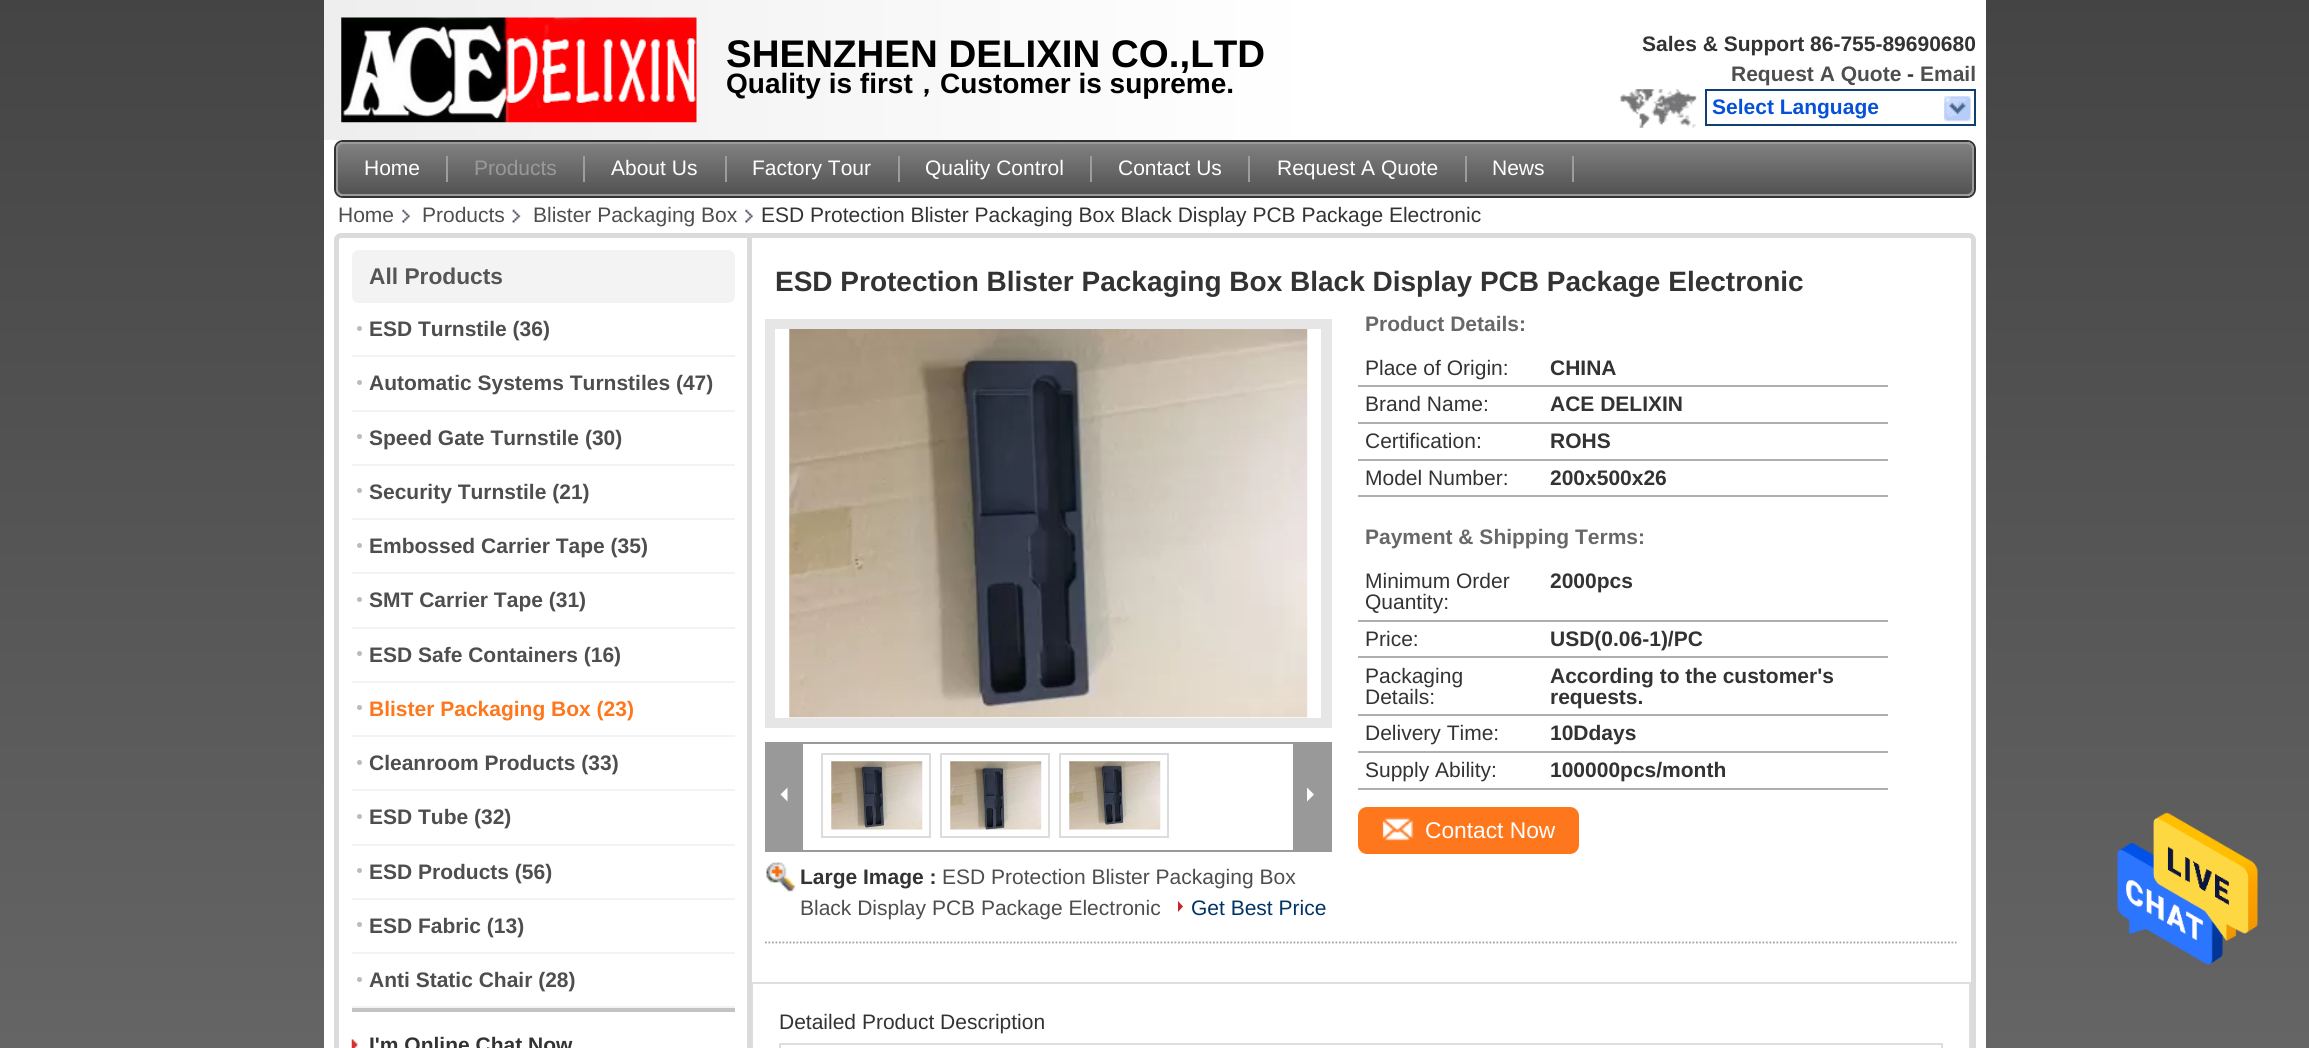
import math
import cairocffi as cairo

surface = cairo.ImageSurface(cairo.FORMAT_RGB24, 2309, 1048)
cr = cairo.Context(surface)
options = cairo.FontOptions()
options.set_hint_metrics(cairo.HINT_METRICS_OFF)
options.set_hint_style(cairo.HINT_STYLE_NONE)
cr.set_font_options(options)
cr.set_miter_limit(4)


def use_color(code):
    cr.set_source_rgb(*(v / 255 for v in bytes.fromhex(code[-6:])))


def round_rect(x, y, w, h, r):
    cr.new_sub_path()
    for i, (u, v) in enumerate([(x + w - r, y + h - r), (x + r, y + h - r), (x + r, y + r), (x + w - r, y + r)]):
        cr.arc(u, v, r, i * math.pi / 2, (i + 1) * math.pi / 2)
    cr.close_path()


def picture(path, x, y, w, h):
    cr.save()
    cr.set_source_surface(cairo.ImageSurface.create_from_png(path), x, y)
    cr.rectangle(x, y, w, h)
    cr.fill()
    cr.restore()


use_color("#ffffff")
cr.paint()
gradient = cairo.LinearGradient(1155, 0, 1155, 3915)
gradient.add_color_stop_rgba(0, 0.267, 0.267, 0.267, 1)
gradient.add_color_stop_rgba(1, 0.749, 0.749, 0.749, 1)
cr.set_source(gradient)
cr.rectangle(0, 0, 2309, 1048)
cr.fill()
use_color("#ffffff")
cr.rectangle(324, 140, 1662, 908)
cr.fill()
gradient = cairo.LinearGradient(324, 70, 1986, 70)
gradient.add_color_stop_rgba(0, 0.933, 0.933, 0.933, 1)
gradient.add_color_stop_rgba(0.6, 1, 1, 1, 1)
gradient.add_color_stop_rgba(1, 1, 1, 1, 1)
cr.set_source(gradient)
cr.rectangle(324, 0, 1662, 140)
cr.fill()
picture("img1.png", 341, 17, 356, 106)
cr.select_font_face("Liberation Sans", cairo.FONT_SLANT_NORMAL, cairo.FONT_WEIGHT_BOLD)
cr.set_font_size(38.5)
use_color("#000000")
cr.move_to(726, 67)
cr.show_text("SHENZHEN DELIXIN CO.,LTD")
cr.set_font_size(28)
cr.move_to(726, 93)
cr.show_text("Quality is first")
cr.select_font_face("WenQuanYi Zen Hei", cairo.FONT_SLANT_NORMAL, cairo.FONT_WEIGHT_BOLD)
cr.move_to(912, 93)
cr.show_text("，")
cr.select_font_face("Liberation Sans", cairo.FONT_SLANT_NORMAL, cairo.FONT_WEIGHT_BOLD)
cr.move_to(940, 93)
cr.show_text("Customer is supreme.")
cr.set_font_size(21)
use_color("#333333")
cr.move_to(1642, 51)
cr.show_text("Sales & Support 86-755-89690680")
use_color("#4e4e4e")
cr.move_to(1731, 81)
cr.show_text("Request A Quote")
use_color("#333333")
cr.move_to(1907, 81)
cr.show_text("-")
use_color("#4e4e4e")
cr.move_to(1920, 81)
cr.show_text("Email")
picture("img2.png", 1620, 89, 77, 39)
cr.rectangle(1706, 90, 269, 35)
use_color("#0e4074")
cr.stroke()
use_color("#0750d9")
cr.move_to(1712, 114)
cr.show_text("Select Language")
picture("img3.png", 1944, 96, 27, 26)
round_rect(335, 141, 1640, 56, 8)
use_color("#333333")
cr.stroke()
cr.save()
round_rect(336, 142, 1638, 54, 7)
cr.clip()
gradient = cairo.LinearGradient(1155, 143, 1155, 194)
gradient.add_color_stop_rgba(0, 0.506, 0.506, 0.506, 1)
gradient.add_color_stop_rgba(1, 0.322, 0.322, 0.322, 1)
cr.set_source(gradient)
cr.rectangle(336, 144, 1638, 50)
cr.fill()
cr.restore()
round_rect(337, 143, 1636, 52, 6)
use_color("#9b9b9b")
cr.stroke()
use_color("#9d9d9d")
cr.rectangle(446, 156, 2, 26)
cr.fill()
cr.select_font_face("Liberation Sans")
use_color("#ffffff")
cr.move_to(364, 175)
cr.show_text("Home")
use_color("#9d9d9d")
cr.rectangle(583, 156, 2, 26)
cr.fill()
use_color("#999999")
cr.move_to(474, 175)
cr.show_text("Products")
use_color("#9d9d9d")
cr.rectangle(725, 156, 2, 26)
cr.fill()
use_color("#ffffff")
cr.move_to(611, 175)
cr.show_text("About Us")
use_color("#9d9d9d")
cr.rectangle(898, 156, 2, 26)
cr.fill()
use_color("#ffffff")
cr.move_to(752, 175)
cr.show_text("Factory Tour")
use_color("#9d9d9d")
cr.rectangle(1090, 156, 2, 26)
cr.fill()
use_color("#ffffff")
cr.move_to(925, 175)
cr.show_text("Quality Control")
use_color("#9d9d9d")
cr.rectangle(1248, 156, 2, 26)
cr.fill()
use_color("#ffffff")
cr.move_to(1118, 175)
cr.show_text("Contact Us")
use_color("#9d9d9d")
cr.rectangle(1465, 156, 2, 26)
cr.fill()
use_color("#ffffff")
cr.move_to(1277, 175)
cr.show_text("Request A Quote")
use_color("#9d9d9d")
cr.rectangle(1572, 156, 2, 26)
cr.fill()
use_color("#ffffff")
cr.move_to(1492, 175)
cr.show_text("News")
use_color("#4e4e4e")
cr.move_to(338, 222)
cr.show_text("Home")
picture("img4.png", 402, 209, 8, 14)
cr.move_to(422, 222)
cr.show_text("Products")
picture("img5.png", 512, 209, 9, 14)
cr.move_to(533, 222)
cr.show_text("Blister Packaging Box")
picture("img4.png", 745, 209, 8, 14)
use_color("#333333")
cr.move_to(761, 222)
cr.show_text("ESD Protection Blister Packaging Box Black Display PCB Package Electronic")
round_rect(336.5, 235.5, 1637, 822, 4.5)
use_color("#dbdbdb")
cr.set_line_width(5)
cr.stroke()
use_color("#f3f3f3")
round_rect(352, 250, 383, 53, 7)
cr.fill()
cr.select_font_face("Liberation Sans", cairo.FONT_SLANT_NORMAL, cairo.FONT_WEIGHT_BOLD)
cr.set_font_size(22.75)
use_color("#555555")
cr.move_to(369, 284)
cr.show_text("All Products")
use_color("#f0f4f6")
cr.rectangle(352, 355, 383, 2)
cr.fill()
use_color("#bbbbbb")
cr.arc(359.5, 328.5, 2.5, 0, 2 * math.pi)
cr.fill()
cr.set_font_size(21)
use_color("#4e4e4e")
cr.move_to(369, 336)
cr.show_text("ESD Turnstile (36)")
use_color("#f0f4f6")
cr.rectangle(352, 410, 383, 2)
cr.fill()
use_color("#bbbbbb")
cr.arc(359.5, 382.5, 2.5, 0, 2 * math.pi)
cr.fill()
use_color("#4e4e4e")
cr.move_to(369, 390)
cr.show_text("Automatic Systems Turnstiles (47)")
use_color("#f0f4f6")
cr.rectangle(352, 464, 383, 2)
cr.fill()
use_color("#bbbbbb")
cr.arc(359.5, 436.5, 2.5, 0, 2 * math.pi)
cr.fill()
use_color("#4e4e4e")
cr.move_to(369, 445)
cr.show_text("Speed Gate Turnstile (30)")
use_color("#f0f4f6")
cr.rectangle(352, 518, 383, 2)
cr.fill()
use_color("#bbbbbb")
cr.arc(359.5, 490.5, 2.5, 0, 2 * math.pi)
cr.fill()
use_color("#4e4e4e")
cr.move_to(369, 499)
cr.show_text("Security Turnstile (21)")
use_color("#f0f4f6")
cr.rectangle(352, 572, 383, 2)
cr.fill()
use_color("#bbbbbb")
cr.arc(359.5, 545.5, 2.5, 0, 2 * math.pi)
cr.fill()
use_color("#4e4e4e")
cr.move_to(369, 553)
cr.show_text("Embossed Carrier Tape (35)")
use_color("#f0f4f6")
cr.rectangle(352, 627, 383, 2)
cr.fill()
use_color("#bbbbbb")
cr.arc(359.5, 599.5, 2.5, 0, 2 * math.pi)
cr.fill()
use_color("#4e4e4e")
cr.move_to(369, 607)
cr.show_text("SMT Carrier Tape (31)")
use_color("#f0f4f6")
cr.rectangle(352, 681, 383, 2)
cr.fill()
use_color("#bbbbbb")
cr.arc(359.5, 653.5, 2.5, 0, 2 * math.pi)
cr.fill()
use_color("#4e4e4e")
cr.move_to(369, 662)
cr.show_text("ESD Safe Containers (16)")
use_color("#f0f4f6")
cr.rectangle(352, 735, 383, 2)
cr.fill()
use_color("#bbbbbb")
cr.arc(359.5, 707.5, 2.5, 0, 2 * math.pi)
cr.fill()
use_color("#ff771c")
cr.move_to(369, 716)
cr.show_text("Blister Packaging Box (23)")
use_color("#f0f4f6")
cr.rectangle(352, 789, 383, 2)
cr.fill()
use_color("#bbbbbb")
cr.arc(359.5, 762.5, 2.5, 0, 2 * math.pi)
cr.fill()
use_color("#4e4e4e")
cr.move_to(369, 770)
cr.show_text("Cleanroom Products (33)")
use_color("#f0f4f6")
cr.rectangle(352, 844, 383, 2)
cr.fill()
use_color("#bbbbbb")
cr.arc(359.5, 816.5, 2.5, 0, 2 * math.pi)
cr.fill()
use_color("#4e4e4e")
cr.move_to(369, 824)
cr.show_text("ESD Tube (32)")
use_color("#f0f4f6")
cr.rectangle(352, 898, 383, 2)
cr.fill()
use_color("#bbbbbb")
cr.arc(359.5, 870.5, 2.5, 0, 2 * math.pi)
cr.fill()
use_color("#4e4e4e")
cr.move_to(369, 879)
cr.show_text("ESD Products (56)")
use_color("#f0f4f6")
cr.rectangle(352, 952, 383, 2)
cr.fill()
use_color("#bbbbbb")
cr.arc(359.5, 924.5, 2.5, 0, 2 * math.pi)
cr.fill()
use_color("#4e4e4e")
cr.move_to(369, 933)
cr.show_text("ESD Fabric (13)")
use_color("#f0f4f6")
cr.rectangle(352, 1006, 383, 2)
cr.fill()
use_color("#bbbbbb")
cr.arc(359.5, 979.5, 2.5, 0, 2 * math.pi)
cr.fill()
use_color("#4e4e4e")
cr.move_to(369, 987)
cr.show_text("Anti Static Chair (28)")
use_color("#c3c3c3")
cr.rectangle(352, 1008, 383, 4)
cr.fill()
picture("img6.png", 351, 1039, 7, 9)
use_color("#333333")
cr.move_to(369, 1052)
cr.show_text("I'm Online Chat Now")
cr.rectangle(752, 983, 1218, 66)
use_color("#dedede")
cr.set_line_width(2)
cr.stroke()
use_color("#dbdbdb")
cr.rectangle(747, 238, 5, 810)
cr.fill()
cr.set_font_size(28)
use_color("#333333")
cr.move_to(775, 291)
cr.show_text("ESD Protection Blister Packaging Box Black Display PCB Package Electronic")
cr.new_path()
cr.move_to(765, 942.5)
cr.line_to(1956.5, 942.5)
use_color("#a2a2a2")
cr.set_line_width(1.8)
cr.set_dash([1.75, 1.75])
cr.stroke()
cr.set_font_size(21)
use_color("#686868")
cr.move_to(1365, 331)
cr.show_text("Product Details:")
cr.select_font_face("Liberation Sans")
use_color("#333333")
cr.move_to(1365, 375)
cr.show_text("Place of Origin:")
use_color("#afafaf")
cr.rectangle(1358, 385, 530, 2)
cr.fill()
cr.select_font_face("Liberation Sans", cairo.FONT_SLANT_NORMAL, cairo.FONT_WEIGHT_BOLD)
use_color("#333333")
cr.move_to(1550, 375)
cr.show_text("CHINA")
cr.select_font_face("Liberation Sans")
cr.move_to(1365, 411)
cr.show_text("Brand Name:")
use_color("#afafaf")
cr.rectangle(1358, 422, 530, 2)
cr.fill()
cr.select_font_face("Liberation Sans", cairo.FONT_SLANT_NORMAL, cairo.FONT_WEIGHT_BOLD)
use_color("#333333")
cr.move_to(1550, 411)
cr.show_text("ACE DELIXIN")
cr.select_font_face("Liberation Sans")
cr.move_to(1365, 448)
cr.show_text("Certification:")
use_color("#afafaf")
cr.rectangle(1358, 459, 530, 2)
cr.fill()
cr.select_font_face("Liberation Sans", cairo.FONT_SLANT_NORMAL, cairo.FONT_WEIGHT_BOLD)
use_color("#333333")
cr.move_to(1550, 448)
cr.show_text("ROHS")
cr.select_font_face("Liberation Sans")
cr.move_to(1365, 485)
cr.show_text("Model Number:")
use_color("#afafaf")
cr.rectangle(1358, 495, 530, 2)
cr.fill()
cr.select_font_face("Liberation Sans", cairo.FONT_SLANT_NORMAL, cairo.FONT_WEIGHT_BOLD)
use_color("#333333")
cr.move_to(1550, 485)
cr.show_text("200x500x26")
use_color("#686868")
cr.move_to(1365, 544)
cr.show_text("Payment & Shipping Terms:")
cr.select_font_face("Liberation Sans")
use_color("#333333")
cr.move_to(1365, 588)
cr.show_text("Minimum Order")
cr.move_to(1365, 609)
cr.show_text("Quantity:")
use_color("#afafaf")
cr.rectangle(1358, 620, 530, 2)
cr.fill()
cr.select_font_face("Liberation Sans", cairo.FONT_SLANT_NORMAL, cairo.FONT_WEIGHT_BOLD)
use_color("#333333")
cr.move_to(1550, 588)
cr.show_text("2000pcs")
cr.select_font_face("Liberation Sans")
cr.move_to(1365, 646)
cr.show_text("Price:")
use_color("#afafaf")
cr.rectangle(1358, 656, 530, 2)
cr.fill()
cr.select_font_face("Liberation Sans", cairo.FONT_SLANT_NORMAL, cairo.FONT_WEIGHT_BOLD)
use_color("#333333")
cr.move_to(1550, 646)
cr.show_text("USD(0.06-1)/PC")
cr.select_font_face("Liberation Sans")
cr.move_to(1365, 683)
cr.show_text("Packaging")
cr.move_to(1365, 704)
cr.show_text("Details:")
use_color("#afafaf")
cr.rectangle(1358, 714, 530, 2)
cr.fill()
cr.select_font_face("Liberation Sans", cairo.FONT_SLANT_NORMAL, cairo.FONT_WEIGHT_BOLD)
use_color("#333333")
cr.move_to(1550, 683)
cr.show_text("According to the customer's")
cr.move_to(1550, 704)
cr.show_text("requests.")
cr.select_font_face("Liberation Sans")
cr.move_to(1365, 740)
cr.show_text("Delivery Time:")
use_color("#afafaf")
cr.rectangle(1358, 751, 530, 2)
cr.fill()
cr.select_font_face("Liberation Sans", cairo.FONT_SLANT_NORMAL, cairo.FONT_WEIGHT_BOLD)
use_color("#333333")
cr.move_to(1550, 740)
cr.show_text("10Ddays")
cr.select_font_face("Liberation Sans")
cr.move_to(1365, 777)
cr.show_text("Supply Ability:")
use_color("#afafaf")
cr.rectangle(1358, 788, 530, 2)
cr.fill()
cr.select_font_face("Liberation Sans", cairo.FONT_SLANT_NORMAL, cairo.FONT_WEIGHT_BOLD)
use_color("#333333")
cr.move_to(1550, 777)
cr.show_text("100000pcs/month")
use_color("#ff771c")
round_rect(1359, 808, 219, 45, 8)
cr.fill_preserve()
cr.set_line_width(2)
cr.set_dash([])
cr.stroke()
picture("img7.png", 1382, 817, 32, 24)
cr.select_font_face("Liberation Sans")
cr.set_font_size(22.75)
use_color("#ffffff")
cr.move_to(1425, 838)
cr.show_text("Contact Now")
cr.rectangle(770.5, 324.5, 556, 398)
use_color("#e6e6e6")
cr.set_line_width(11)
cr.stroke()
use_color("#ffffff")
cr.rectangle(775, 329, 546, 389)
cr.fill()
picture("img8.png", 789, 329, 519, 389)
cr.rectangle(766, 743, 565, 108)
use_color("#999999")
cr.set_line_width(2)
cr.stroke()
cr.rectangle(767, 744, 36, 106)
cr.fill()
use_color("#ffffff")
cr.new_path()
cr.move_to(787.5, 787.5)
cr.line_to(787.5, 801.5)
cr.line_to(780.5, 794.5)
cr.close_path()
cr.fill()
cr.rectangle(822, 754, 108, 83)
use_color("#dcdcdc")
cr.stroke()
picture("img9.png", 831, 761, 92, 69)
cr.rectangle(941, 754, 108, 83)
cr.stroke()
picture("img10.png", 950, 761, 92, 69)
cr.rectangle(1060, 754, 108, 83)
cr.stroke()
picture("img11.png", 1069, 761, 92, 69)
use_color("#999999")
cr.rectangle(1293, 744, 37, 106)
cr.fill()
use_color("#ffffff")
cr.new_path()
cr.move_to(1307, 801.5)
cr.line_to(1307, 787.5)
cr.line_to(1314, 794.5)
cr.close_path()
cr.fill()
picture("img12.png", 766, 862, 29, 30)
cr.select_font_face("Liberation Sans", cairo.FONT_SLANT_NORMAL, cairo.FONT_WEIGHT_BOLD)
cr.set_font_size(21)
use_color("#333333")
cr.move_to(800, 884)
cr.show_text("Large Image :")
cr.select_font_face("Liberation Sans")
use_color("#4e4e4e")
cr.move_to(942, 884)
cr.show_text("ESD Protection Blister Packaging Box")
cr.move_to(800, 915)
cr.show_text("Black Display PCB Package Electronic")
use_color("#c9242b")
cr.new_path()
cr.move_to(1178, 912)
cr.line_to(1178, 901)
cr.line_to(1183, 906.5)
cr.close_path()
cr.fill()
use_color("#003366")
cr.move_to(1191, 915)
cr.show_text("Get Best Price")
use_color("#333333")
cr.move_to(779, 1029)
cr.show_text("Detailed Product Description")
cr.rectangle(780, 1044, 1162, 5)
use_color("#dedede")
cr.stroke()
picture("img13.png", 2117, 812, 141, 154)
surface.write_to_png("result.png")
